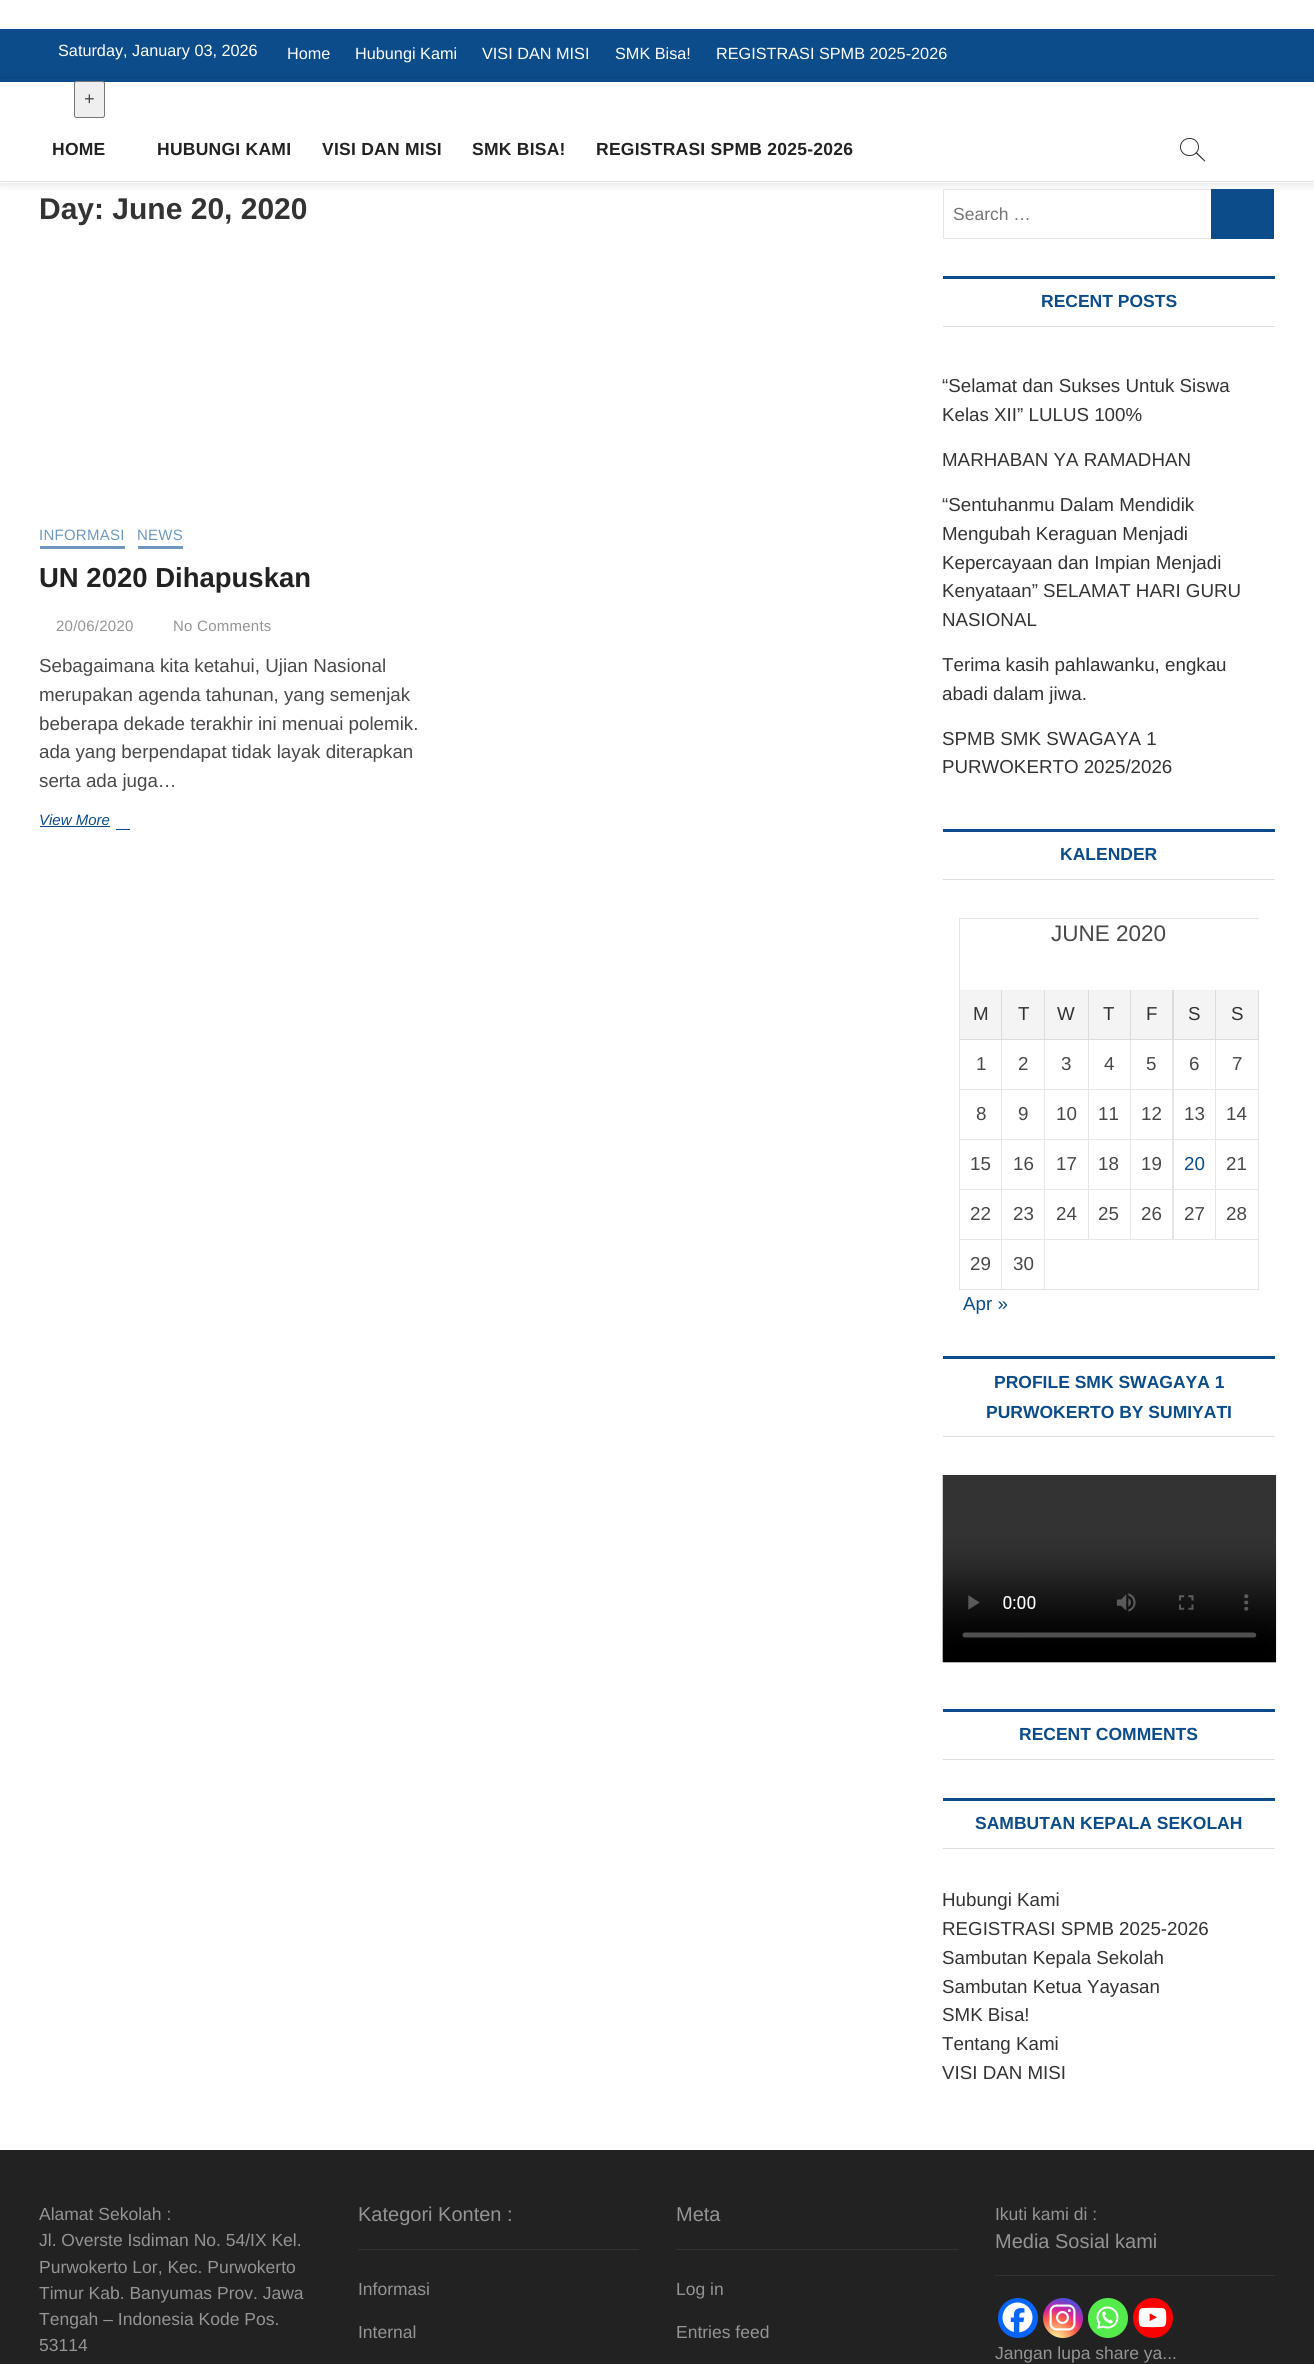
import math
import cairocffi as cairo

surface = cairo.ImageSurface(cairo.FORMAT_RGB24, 1314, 2364)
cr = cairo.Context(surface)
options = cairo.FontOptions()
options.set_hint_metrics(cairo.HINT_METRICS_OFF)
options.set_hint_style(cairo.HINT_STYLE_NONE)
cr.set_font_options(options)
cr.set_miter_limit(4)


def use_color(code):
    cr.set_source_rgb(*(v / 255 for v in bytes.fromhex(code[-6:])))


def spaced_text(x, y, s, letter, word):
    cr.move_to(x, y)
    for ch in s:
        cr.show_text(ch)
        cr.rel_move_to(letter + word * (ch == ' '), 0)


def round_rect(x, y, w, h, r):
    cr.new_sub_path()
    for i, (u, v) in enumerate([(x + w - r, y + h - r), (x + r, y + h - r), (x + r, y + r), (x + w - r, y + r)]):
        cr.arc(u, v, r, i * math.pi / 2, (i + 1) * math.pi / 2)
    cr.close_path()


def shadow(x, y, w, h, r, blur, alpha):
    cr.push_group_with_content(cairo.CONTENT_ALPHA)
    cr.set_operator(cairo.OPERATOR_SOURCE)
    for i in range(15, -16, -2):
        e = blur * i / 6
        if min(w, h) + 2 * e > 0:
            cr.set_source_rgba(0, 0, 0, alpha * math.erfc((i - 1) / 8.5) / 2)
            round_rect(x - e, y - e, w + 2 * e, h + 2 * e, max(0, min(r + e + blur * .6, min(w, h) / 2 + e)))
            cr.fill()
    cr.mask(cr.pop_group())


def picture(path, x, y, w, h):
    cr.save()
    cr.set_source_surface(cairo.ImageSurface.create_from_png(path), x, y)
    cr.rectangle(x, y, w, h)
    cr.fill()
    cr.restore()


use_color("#ffffff")
cr.paint()
use_color("#0c4c8a")
cr.rectangle(0, 29, 1314, 50)
cr.fill()
cr.select_font_face("Liberation Sans")
cr.set_font_size(16.25)
use_color("#ffffff")
cr.move_to(58, 56)
cr.show_text("Saturday, January 03, 2026")
cr.move_to(287, 59)
cr.show_text("Home")
cr.move_to(355, 59)
cr.show_text("Hubungi Kami")
cr.move_to(482, 59)
cr.show_text("VISI DAN MISI")
cr.move_to(615, 59)
cr.show_text("SMK Bisa!")
cr.move_to(716, 59)
cr.show_text("REGISTRASI SPMB 2025-2026")
cr.save()
cr.set_fill_rule(cairo.FILL_RULE_EVEN_ODD)
cr.new_path()
cr.move_to(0, 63)
cr.line_to(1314, 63)
cr.line_to(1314, 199)
cr.line_to(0, 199)
cr.close_path()
cr.move_to(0, 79)
cr.line_to(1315, 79)
cr.line_to(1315, 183)
cr.line_to(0, 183)
cr.close_path()
cr.clip()
use_color("#000000")
shadow(0, 79, 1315, 104, 0, 5, 0.15)
cr.restore()
use_color("#0c4c8a")
cr.rectangle(0, 79, 1314, 3)
cr.fill()
use_color("#dddddd")
cr.rectangle(0, 181, 1314, 1)
cr.fill()
use_color("#efefef")
round_rect(74.5, 81.5, 30, 36, 2)
cr.fill_preserve()
use_color("#767676")
cr.set_line_width(1)
cr.stroke()
cr.select_font_face("Liberation Serif", cairo.FONT_SLANT_NORMAL, cairo.FONT_WEIGHT_BOLD)
cr.set_font_size(18.75)
use_color("#484848")
cr.move_to(84, 105)
cr.show_text("+")
cr.select_font_face("Liberation Sans", cairo.FONT_SLANT_NORMAL, cairo.FONT_WEIGHT_BOLD)
cr.set_font_size(17.5)
use_color("#222222")
spaced_text(52, 155, "HOME", 0.25, 0)
spaced_text(157, 155, "HUBUNGI KAMI", 0.25, 0)
spaced_text(322, 155, "VISI DAN MISI", 0.25, 0)
spaced_text(472, 155, "SMK BISA!", 0.25, 0)
spaced_text(596, 155, "REGISTRASI SPMB 2025-2026", 0.25, 0)
round_rect(1180.5, 138.5, 18, 17, 8.5)
use_color("#333333")
cr.stroke()
cr.new_path()
cr.move_to(1195.5, 153)
cr.line_to(1196.5, 152)
cr.line_to(1205.5, 161)
cr.line_to(1204.5, 161.5)
cr.close_path()
cr.fill()
cr.set_font_size(30)
cr.move_to(39, 219)
cr.show_text("Day: June 20, 2020")
cr.select_font_face("Liberation Sans")
cr.set_font_size(15)
use_color("#6e98bf")
spaced_text(39, 540, "INFORMASI", 0.25, 0)
cr.rectangle(40, 546, 85, 3)
cr.fill()
spaced_text(137, 540, "NEWS", 0.25, 0)
cr.rectangle(138, 546, 45, 3)
cr.fill()
cr.select_font_face("Liberation Sans", cairo.FONT_SLANT_NORMAL, cairo.FONT_WEIGHT_BOLD)
cr.set_font_size(27.5)
use_color("#222222")
cr.move_to(39, 587)
cr.show_text("UN 2020 Dihapuskan")
cr.select_font_face("Liberation Sans")
cr.set_font_size(15)
use_color("#949494")
spaced_text(56, 631, "20/06/2020", 0.25, 0)
spaced_text(173, 631, "No Comments", 0.25, 0)
cr.set_font_size(18.75)
use_color("#484848")
cr.move_to(39, 672)
cr.show_text("Sebagaimana kita ketahui, Ujian Nasional")
cr.move_to(39, 701)
cr.show_text("merupakan agenda tahunan, yang semenjak")
cr.move_to(39, 730)
cr.show_text("beberapa dekade terakhir ini menuai polemik.")
cr.move_to(39, 758)
cr.show_text("ada yang berpendapat tidak layak diterapkan")
cr.move_to(39, 787)
cr.show_text("serta ada juga…")
cr.select_font_face("Liberation Sans", cairo.FONT_SLANT_ITALIC)
cr.set_font_size(15)
use_color("#0c4c8a")
cr.move_to(39, 825)
cr.show_text("View More")
cr.rectangle(40, 826, 70, 1)
cr.fill()
cr.rectangle(116, 829, 14, 1)
cr.fill()
cr.rectangle(943.5, 189.5, 269, 49)
cr.set_source_rgba(0, 0, 0, 0.1)
cr.stroke()
cr.select_font_face("Liberation Sans")
cr.set_font_size(17.5)
use_color("#757575")
cr.move_to(953, 220)
cr.show_text("Search …")
use_color("#0c4c8a")
cr.rectangle(1211, 189, 63, 50)
cr.fill()
cr.rectangle(943, 276, 332, 3)
cr.fill()
use_color("#dddddd")
cr.rectangle(943, 326, 332, 1)
cr.fill()
cr.select_font_face("Liberation Sans", cairo.FONT_SLANT_NORMAL, cairo.FONT_WEIGHT_BOLD)
use_color("#0c4c8a")
cr.move_to(1041, 307)
cr.show_text("RECENT POSTS")
cr.select_font_face("Liberation Sans")
cr.set_font_size(18.75)
use_color("#333333")
cr.move_to(942, 392)
cr.show_text("“Selamat dan Sukses Untuk Siswa")
cr.move_to(942, 421)
cr.show_text("Kelas XII” LULUS 100%")
cr.move_to(942, 466)
cr.show_text("MARHABAN YA RAMADHAN")
cr.move_to(942, 511)
cr.show_text("“Sentuhanmu Dalam Mendidik")
cr.move_to(942, 540)
cr.show_text("Mengubah Keraguan Menjadi")
cr.move_to(942, 569)
cr.show_text("Kepercayaan dan Impian Menjadi")
cr.move_to(942, 597)
cr.show_text("Kenyataan” SELAMAT HARI GURU")
cr.move_to(942, 626)
cr.show_text("NASIONAL")
cr.move_to(942, 671)
cr.show_text("Terima kasih pahlawanku, engkau")
cr.move_to(942, 700)
cr.show_text("abadi dalam jiwa.")
cr.move_to(942, 745)
cr.show_text("SPMB SMK SWAGAYA 1")
cr.move_to(942, 773)
cr.show_text("PURWOKERTO 2025/2026")
use_color("#0c4c8a")
cr.rectangle(943, 829, 332, 3)
cr.fill()
use_color("#dddddd")
cr.rectangle(943, 879, 332, 1)
cr.fill()
cr.select_font_face("Liberation Sans", cairo.FONT_SLANT_NORMAL, cairo.FONT_WEIGHT_BOLD)
cr.set_font_size(17.5)
use_color("#0c4c8a")
cr.move_to(1060, 860)
cr.show_text("KALENDER")
use_color("#e6e6e6")
cr.new_path()
cr.move_to(959, 918)
cr.line_to(1259, 918)
cr.line_to(1259, 919)
cr.line_to(960, 919)
cr.close_path()
cr.fill()
cr.set_source_rgba(0, 0, 0, 0.1)
cr.new_path()
cr.move_to(959, 1290)
cr.line_to(959, 918)
cr.line_to(960, 919)
cr.line_to(960, 1290)
cr.close_path()
cr.fill()
cr.select_font_face("Liberation Sans")
cr.set_font_size(22.5)
use_color("#484848")
cr.move_to(1051, 941)
cr.show_text("JUNE 2020")
use_color("#f4f4f4")
cr.rectangle(960, 990, 299, 50)
cr.fill()
use_color("#dcdcdc")
cr.new_path()
cr.move_to(1002, 990)
cr.line_to(1002, 1040)
cr.line_to(1001, 1039)
cr.line_to(1001, 990)
cr.close_path()
cr.fill()
cr.set_source_rgba(0, 0, 0, 0.1)
cr.new_path()
cr.move_to(1002, 1040)
cr.line_to(960, 1040)
cr.line_to(960, 1039)
cr.line_to(1001, 1039)
cr.close_path()
cr.fill()
cr.set_font_size(18.75)
use_color("#333333")
cr.move_to(973, 1020)
cr.show_text("M")
use_color("#dcdcdc")
cr.new_path()
cr.move_to(1045, 990)
cr.line_to(1045, 1040)
cr.line_to(1044, 1039)
cr.line_to(1044, 990)
cr.close_path()
cr.fill()
cr.set_source_rgba(0, 0, 0, 0.1)
cr.new_path()
cr.move_to(1045, 1040)
cr.line_to(1002, 1040)
cr.line_to(1002, 1039)
cr.line_to(1044, 1039)
cr.close_path()
cr.fill()
use_color("#333333")
cr.move_to(1018, 1020)
cr.show_text("T")
use_color("#dcdcdc")
cr.new_path()
cr.move_to(1089, 990)
cr.line_to(1089, 1040)
cr.line_to(1088, 1039)
cr.line_to(1088, 990)
cr.close_path()
cr.fill()
cr.set_source_rgba(0, 0, 0, 0.1)
cr.new_path()
cr.move_to(1089, 1040)
cr.line_to(1045, 1040)
cr.line_to(1045, 1039)
cr.line_to(1088, 1039)
cr.close_path()
cr.fill()
use_color("#333333")
cr.move_to(1057, 1020)
cr.show_text("W")
use_color("#dcdcdc")
cr.new_path()
cr.move_to(1131, 990)
cr.line_to(1131, 1040)
cr.line_to(1130, 1039)
cr.line_to(1130, 990)
cr.close_path()
cr.fill()
cr.set_source_rgba(0, 0, 0, 0.1)
cr.new_path()
cr.move_to(1131, 1040)
cr.line_to(1089, 1040)
cr.line_to(1089, 1039)
cr.line_to(1130, 1039)
cr.close_path()
cr.fill()
use_color("#333333")
cr.move_to(1103, 1020)
cr.show_text("T")
use_color("#dcdcdc")
cr.new_path()
cr.move_to(1174, 990)
cr.line_to(1174, 1040)
cr.line_to(1172, 1039)
cr.line_to(1172, 990)
cr.close_path()
cr.fill()
cr.set_source_rgba(0, 0, 0, 0.1)
cr.new_path()
cr.move_to(1174, 1040)
cr.line_to(1131, 1040)
cr.line_to(1131, 1039)
cr.line_to(1172, 1039)
cr.close_path()
cr.fill()
use_color("#333333")
cr.move_to(1146, 1020)
cr.show_text("F")
use_color("#dcdcdc")
cr.new_path()
cr.move_to(1216, 990)
cr.line_to(1216, 1040)
cr.line_to(1215, 1039)
cr.line_to(1215, 990)
cr.close_path()
cr.fill()
cr.set_source_rgba(0, 0, 0, 0.1)
cr.new_path()
cr.move_to(1216, 1040)
cr.line_to(1174, 1040)
cr.line_to(1174, 1039)
cr.line_to(1215, 1039)
cr.close_path()
cr.fill()
use_color("#333333")
cr.move_to(1188, 1020)
cr.show_text("S")
use_color("#dcdcdc")
cr.new_path()
cr.move_to(1259, 990)
cr.line_to(1259, 1040)
cr.line_to(1258, 1039)
cr.line_to(1258, 990)
cr.close_path()
cr.fill()
cr.set_source_rgba(0, 0, 0, 0.1)
cr.new_path()
cr.move_to(1259, 1040)
cr.line_to(1216, 1040)
cr.line_to(1216, 1039)
cr.line_to(1258, 1039)
cr.close_path()
cr.fill()
use_color("#333333")
cr.move_to(1231, 1020)
cr.show_text("S")
use_color("#e6e6e6")
cr.new_path()
cr.move_to(1002, 1040)
cr.line_to(1002, 1090)
cr.line_to(1001, 1089)
cr.line_to(1001, 1040)
cr.close_path()
cr.fill()
cr.set_source_rgba(0, 0, 0, 0.1)
cr.new_path()
cr.move_to(1002, 1090)
cr.line_to(960, 1090)
cr.line_to(960, 1089)
cr.line_to(1001, 1089)
cr.close_path()
cr.fill()
use_color("#484848")
cr.move_to(976, 1070)
cr.show_text("1")
use_color("#e6e6e6")
cr.new_path()
cr.move_to(1045, 1040)
cr.line_to(1045, 1090)
cr.line_to(1044, 1089)
cr.line_to(1044, 1040)
cr.close_path()
cr.fill()
cr.set_source_rgba(0, 0, 0, 0.1)
cr.new_path()
cr.move_to(1045, 1090)
cr.line_to(1002, 1090)
cr.line_to(1002, 1089)
cr.line_to(1044, 1089)
cr.close_path()
cr.fill()
use_color("#484848")
cr.move_to(1018, 1070)
cr.show_text("2")
use_color("#e6e6e6")
cr.new_path()
cr.move_to(1089, 1040)
cr.line_to(1089, 1090)
cr.line_to(1088, 1089)
cr.line_to(1088, 1040)
cr.close_path()
cr.fill()
cr.set_source_rgba(0, 0, 0, 0.1)
cr.new_path()
cr.move_to(1089, 1090)
cr.line_to(1045, 1090)
cr.line_to(1045, 1089)
cr.line_to(1088, 1089)
cr.close_path()
cr.fill()
use_color("#484848")
cr.move_to(1061, 1070)
cr.show_text("3")
use_color("#e6e6e6")
cr.new_path()
cr.move_to(1131, 1040)
cr.line_to(1131, 1090)
cr.line_to(1130, 1089)
cr.line_to(1130, 1040)
cr.close_path()
cr.fill()
cr.set_source_rgba(0, 0, 0, 0.1)
cr.new_path()
cr.move_to(1131, 1090)
cr.line_to(1089, 1090)
cr.line_to(1089, 1089)
cr.line_to(1130, 1089)
cr.close_path()
cr.fill()
use_color("#484848")
cr.move_to(1104, 1070)
cr.show_text("4")
use_color("#e6e6e6")
cr.new_path()
cr.move_to(1174, 1040)
cr.line_to(1174, 1090)
cr.line_to(1172, 1089)
cr.line_to(1172, 1040)
cr.close_path()
cr.fill()
cr.set_source_rgba(0, 0, 0, 0.1)
cr.new_path()
cr.move_to(1174, 1090)
cr.line_to(1131, 1090)
cr.line_to(1131, 1089)
cr.line_to(1172, 1089)
cr.close_path()
cr.fill()
use_color("#484848")
cr.move_to(1146, 1070)
cr.show_text("5")
use_color("#e6e6e6")
cr.new_path()
cr.move_to(1216, 1040)
cr.line_to(1216, 1090)
cr.line_to(1215, 1089)
cr.line_to(1215, 1040)
cr.close_path()
cr.fill()
cr.set_source_rgba(0, 0, 0, 0.1)
cr.new_path()
cr.move_to(1216, 1090)
cr.line_to(1174, 1090)
cr.line_to(1174, 1089)
cr.line_to(1215, 1089)
cr.close_path()
cr.fill()
use_color("#484848")
cr.move_to(1189, 1070)
cr.show_text("6")
use_color("#e6e6e6")
cr.new_path()
cr.move_to(1259, 1040)
cr.line_to(1259, 1090)
cr.line_to(1258, 1089)
cr.line_to(1258, 1040)
cr.close_path()
cr.fill()
cr.set_source_rgba(0, 0, 0, 0.1)
cr.new_path()
cr.move_to(1259, 1090)
cr.line_to(1216, 1090)
cr.line_to(1216, 1089)
cr.line_to(1258, 1089)
cr.close_path()
cr.fill()
use_color("#484848")
cr.move_to(1232, 1070)
cr.show_text("7")
use_color("#e6e6e6")
cr.new_path()
cr.move_to(1002, 1090)
cr.line_to(1002, 1140)
cr.line_to(1001, 1139)
cr.line_to(1001, 1090)
cr.close_path()
cr.fill()
cr.set_source_rgba(0, 0, 0, 0.1)
cr.new_path()
cr.move_to(1002, 1140)
cr.line_to(960, 1140)
cr.line_to(960, 1139)
cr.line_to(1001, 1139)
cr.close_path()
cr.fill()
use_color("#484848")
cr.move_to(976, 1120)
cr.show_text("8")
use_color("#e6e6e6")
cr.new_path()
cr.move_to(1045, 1090)
cr.line_to(1045, 1140)
cr.line_to(1044, 1139)
cr.line_to(1044, 1090)
cr.close_path()
cr.fill()
cr.set_source_rgba(0, 0, 0, 0.1)
cr.new_path()
cr.move_to(1045, 1140)
cr.line_to(1002, 1140)
cr.line_to(1002, 1139)
cr.line_to(1044, 1139)
cr.close_path()
cr.fill()
use_color("#484848")
cr.move_to(1018, 1120)
cr.show_text("9")
use_color("#e6e6e6")
cr.new_path()
cr.move_to(1089, 1090)
cr.line_to(1089, 1140)
cr.line_to(1088, 1139)
cr.line_to(1088, 1090)
cr.close_path()
cr.fill()
cr.set_source_rgba(0, 0, 0, 0.1)
cr.new_path()
cr.move_to(1089, 1140)
cr.line_to(1045, 1140)
cr.line_to(1045, 1139)
cr.line_to(1088, 1139)
cr.close_path()
cr.fill()
use_color("#484848")
cr.move_to(1056, 1120)
cr.show_text("10")
use_color("#e6e6e6")
cr.new_path()
cr.move_to(1131, 1090)
cr.line_to(1131, 1140)
cr.line_to(1130, 1139)
cr.line_to(1130, 1090)
cr.close_path()
cr.fill()
cr.set_source_rgba(0, 0, 0, 0.1)
cr.new_path()
cr.move_to(1131, 1140)
cr.line_to(1089, 1140)
cr.line_to(1089, 1139)
cr.line_to(1130, 1139)
cr.close_path()
cr.fill()
use_color("#484848")
cr.move_to(1098, 1120)
cr.show_text("11")
use_color("#e6e6e6")
cr.new_path()
cr.move_to(1174, 1090)
cr.line_to(1174, 1140)
cr.line_to(1172, 1139)
cr.line_to(1172, 1090)
cr.close_path()
cr.fill()
cr.set_source_rgba(0, 0, 0, 0.1)
cr.new_path()
cr.move_to(1174, 1140)
cr.line_to(1131, 1140)
cr.line_to(1131, 1139)
cr.line_to(1172, 1139)
cr.close_path()
cr.fill()
use_color("#484848")
cr.move_to(1141, 1120)
cr.show_text("12")
use_color("#e6e6e6")
cr.new_path()
cr.move_to(1216, 1090)
cr.line_to(1216, 1140)
cr.line_to(1215, 1139)
cr.line_to(1215, 1090)
cr.close_path()
cr.fill()
cr.set_source_rgba(0, 0, 0, 0.1)
cr.new_path()
cr.move_to(1216, 1140)
cr.line_to(1174, 1140)
cr.line_to(1174, 1139)
cr.line_to(1215, 1139)
cr.close_path()
cr.fill()
use_color("#484848")
cr.move_to(1184, 1120)
cr.show_text("13")
use_color("#e6e6e6")
cr.new_path()
cr.move_to(1259, 1090)
cr.line_to(1259, 1140)
cr.line_to(1258, 1139)
cr.line_to(1258, 1090)
cr.close_path()
cr.fill()
cr.set_source_rgba(0, 0, 0, 0.1)
cr.new_path()
cr.move_to(1259, 1140)
cr.line_to(1216, 1140)
cr.line_to(1216, 1139)
cr.line_to(1258, 1139)
cr.close_path()
cr.fill()
use_color("#484848")
cr.move_to(1226, 1120)
cr.show_text("14")
use_color("#e6e6e6")
cr.new_path()
cr.move_to(1002, 1140)
cr.line_to(1002, 1190)
cr.line_to(1001, 1189)
cr.line_to(1001, 1140)
cr.close_path()
cr.fill()
cr.set_source_rgba(0, 0, 0, 0.1)
cr.new_path()
cr.move_to(1002, 1190)
cr.line_to(960, 1190)
cr.line_to(960, 1189)
cr.line_to(1001, 1189)
cr.close_path()
cr.fill()
use_color("#484848")
cr.move_to(970, 1170)
cr.show_text("15")
use_color("#e6e6e6")
cr.new_path()
cr.move_to(1045, 1140)
cr.line_to(1045, 1190)
cr.line_to(1044, 1189)
cr.line_to(1044, 1140)
cr.close_path()
cr.fill()
cr.set_source_rgba(0, 0, 0, 0.1)
cr.new_path()
cr.move_to(1045, 1190)
cr.line_to(1002, 1190)
cr.line_to(1002, 1189)
cr.line_to(1044, 1189)
cr.close_path()
cr.fill()
use_color("#484848")
cr.move_to(1013, 1170)
cr.show_text("16")
use_color("#e6e6e6")
cr.new_path()
cr.move_to(1089, 1140)
cr.line_to(1089, 1190)
cr.line_to(1088, 1189)
cr.line_to(1088, 1140)
cr.close_path()
cr.fill()
cr.set_source_rgba(0, 0, 0, 0.1)
cr.new_path()
cr.move_to(1089, 1190)
cr.line_to(1045, 1190)
cr.line_to(1045, 1189)
cr.line_to(1088, 1189)
cr.close_path()
cr.fill()
use_color("#484848")
cr.move_to(1056, 1170)
cr.show_text("17")
use_color("#e6e6e6")
cr.new_path()
cr.move_to(1131, 1140)
cr.line_to(1131, 1190)
cr.line_to(1130, 1189)
cr.line_to(1130, 1140)
cr.close_path()
cr.fill()
cr.set_source_rgba(0, 0, 0, 0.1)
cr.new_path()
cr.move_to(1131, 1190)
cr.line_to(1089, 1190)
cr.line_to(1089, 1189)
cr.line_to(1130, 1189)
cr.close_path()
cr.fill()
use_color("#484848")
cr.move_to(1098, 1170)
cr.show_text("18")
use_color("#e6e6e6")
cr.new_path()
cr.move_to(1174, 1140)
cr.line_to(1174, 1190)
cr.line_to(1172, 1189)
cr.line_to(1172, 1140)
cr.close_path()
cr.fill()
cr.set_source_rgba(0, 0, 0, 0.1)
cr.new_path()
cr.move_to(1174, 1190)
cr.line_to(1131, 1190)
cr.line_to(1131, 1189)
cr.line_to(1172, 1189)
cr.close_path()
cr.fill()
use_color("#484848")
cr.move_to(1141, 1170)
cr.show_text("19")
use_color("#e6e6e6")
cr.new_path()
cr.move_to(1216, 1140)
cr.line_to(1216, 1190)
cr.line_to(1215, 1189)
cr.line_to(1215, 1140)
cr.close_path()
cr.fill()
cr.set_source_rgba(0, 0, 0, 0.1)
cr.new_path()
cr.move_to(1216, 1190)
cr.line_to(1174, 1190)
cr.line_to(1174, 1189)
cr.line_to(1215, 1189)
cr.close_path()
cr.fill()
use_color("#0c4c8a")
cr.move_to(1184, 1170)
cr.show_text("20")
use_color("#e6e6e6")
cr.new_path()
cr.move_to(1259, 1140)
cr.line_to(1259, 1190)
cr.line_to(1258, 1189)
cr.line_to(1258, 1140)
cr.close_path()
cr.fill()
cr.set_source_rgba(0, 0, 0, 0.1)
cr.new_path()
cr.move_to(1259, 1190)
cr.line_to(1216, 1190)
cr.line_to(1216, 1189)
cr.line_to(1258, 1189)
cr.close_path()
cr.fill()
use_color("#484848")
cr.move_to(1226, 1170)
cr.show_text("21")
use_color("#e6e6e6")
cr.new_path()
cr.move_to(1002, 1190)
cr.line_to(1002, 1240)
cr.line_to(1001, 1239)
cr.line_to(1001, 1190)
cr.close_path()
cr.fill()
cr.set_source_rgba(0, 0, 0, 0.1)
cr.new_path()
cr.move_to(1002, 1240)
cr.line_to(960, 1240)
cr.line_to(960, 1239)
cr.line_to(1001, 1239)
cr.close_path()
cr.fill()
use_color("#484848")
cr.move_to(970, 1220)
cr.show_text("22")
use_color("#e6e6e6")
cr.new_path()
cr.move_to(1045, 1190)
cr.line_to(1045, 1240)
cr.line_to(1044, 1239)
cr.line_to(1044, 1190)
cr.close_path()
cr.fill()
cr.set_source_rgba(0, 0, 0, 0.1)
cr.new_path()
cr.move_to(1045, 1240)
cr.line_to(1002, 1240)
cr.line_to(1002, 1239)
cr.line_to(1044, 1239)
cr.close_path()
cr.fill()
use_color("#484848")
cr.move_to(1013, 1220)
cr.show_text("23")
use_color("#e6e6e6")
cr.new_path()
cr.move_to(1089, 1190)
cr.line_to(1089, 1240)
cr.line_to(1088, 1239)
cr.line_to(1088, 1190)
cr.close_path()
cr.fill()
cr.set_source_rgba(0, 0, 0, 0.1)
cr.new_path()
cr.move_to(1089, 1240)
cr.line_to(1045, 1240)
cr.line_to(1045, 1239)
cr.line_to(1088, 1239)
cr.close_path()
cr.fill()
use_color("#484848")
cr.move_to(1056, 1220)
cr.show_text("24")
use_color("#e6e6e6")
cr.new_path()
cr.move_to(1131, 1190)
cr.line_to(1131, 1240)
cr.line_to(1130, 1239)
cr.line_to(1130, 1190)
cr.close_path()
cr.fill()
cr.set_source_rgba(0, 0, 0, 0.1)
cr.new_path()
cr.move_to(1131, 1240)
cr.line_to(1089, 1240)
cr.line_to(1089, 1239)
cr.line_to(1130, 1239)
cr.close_path()
cr.fill()
use_color("#484848")
cr.move_to(1098, 1220)
cr.show_text("25")
use_color("#e6e6e6")
cr.new_path()
cr.move_to(1174, 1190)
cr.line_to(1174, 1240)
cr.line_to(1172, 1239)
cr.line_to(1172, 1190)
cr.close_path()
cr.fill()
cr.set_source_rgba(0, 0, 0, 0.1)
cr.new_path()
cr.move_to(1174, 1240)
cr.line_to(1131, 1240)
cr.line_to(1131, 1239)
cr.line_to(1172, 1239)
cr.close_path()
cr.fill()
use_color("#484848")
cr.move_to(1141, 1220)
cr.show_text("26")
use_color("#e6e6e6")
cr.new_path()
cr.move_to(1216, 1190)
cr.line_to(1216, 1240)
cr.line_to(1215, 1239)
cr.line_to(1215, 1190)
cr.close_path()
cr.fill()
cr.set_source_rgba(0, 0, 0, 0.1)
cr.new_path()
cr.move_to(1216, 1240)
cr.line_to(1174, 1240)
cr.line_to(1174, 1239)
cr.line_to(1215, 1239)
cr.close_path()
cr.fill()
use_color("#484848")
cr.move_to(1184, 1220)
cr.show_text("27")
use_color("#e6e6e6")
cr.new_path()
cr.move_to(1259, 1190)
cr.line_to(1259, 1240)
cr.line_to(1258, 1239)
cr.line_to(1258, 1190)
cr.close_path()
cr.fill()
cr.set_source_rgba(0, 0, 0, 0.1)
cr.new_path()
cr.move_to(1259, 1240)
cr.line_to(1216, 1240)
cr.line_to(1216, 1239)
cr.line_to(1258, 1239)
cr.close_path()
cr.fill()
use_color("#484848")
cr.move_to(1226, 1220)
cr.show_text("28")
use_color("#e6e6e6")
cr.new_path()
cr.move_to(1002, 1240)
cr.line_to(1002, 1290)
cr.line_to(1001, 1289)
cr.line_to(1001, 1240)
cr.close_path()
cr.fill()
cr.set_source_rgba(0, 0, 0, 0.1)
cr.new_path()
cr.move_to(1002, 1290)
cr.line_to(960, 1290)
cr.line_to(960, 1289)
cr.line_to(1001, 1289)
cr.close_path()
cr.fill()
use_color("#484848")
cr.move_to(970, 1270)
cr.show_text("29")
use_color("#e6e6e6")
cr.new_path()
cr.move_to(1045, 1240)
cr.line_to(1045, 1290)
cr.line_to(1044, 1289)
cr.line_to(1044, 1240)
cr.close_path()
cr.fill()
cr.set_source_rgba(0, 0, 0, 0.1)
cr.new_path()
cr.move_to(1045, 1290)
cr.line_to(1002, 1290)
cr.line_to(1002, 1289)
cr.line_to(1044, 1289)
cr.close_path()
cr.fill()
use_color("#484848")
cr.move_to(1013, 1270)
cr.show_text("30")
use_color("#e6e6e6")
cr.new_path()
cr.move_to(1259, 1240)
cr.line_to(1259, 1290)
cr.line_to(1258, 1289)
cr.line_to(1258, 1240)
cr.close_path()
cr.fill()
cr.set_source_rgba(0, 0, 0, 0.1)
cr.new_path()
cr.move_to(1259, 1290)
cr.line_to(1045, 1290)
cr.line_to(1045, 1289)
cr.line_to(1258, 1289)
cr.close_path()
cr.fill()
use_color("#0c4c8a")
cr.move_to(963, 1310)
cr.show_text("Apr »")
cr.rectangle(943, 1356, 332, 3)
cr.fill()
use_color("#dddddd")
cr.rectangle(943, 1436, 332, 1)
cr.fill()
cr.select_font_face("Liberation Sans", cairo.FONT_SLANT_NORMAL, cairo.FONT_WEIGHT_BOLD)
cr.set_font_size(17.5)
use_color("#0c4c8a")
cr.move_to(994, 1388)
cr.show_text("PROFILE SMK SWAGAYA 1")
cr.move_to(986, 1418)
cr.show_text("PURWOKERTO BY SUMIYATI")
picture("img1.png", 942, 1475, 335, 188)
cr.rectangle(943, 1709, 332, 3)
cr.fill()
use_color("#dddddd")
cr.rectangle(943, 1759, 332, 1)
cr.fill()
use_color("#0c4c8a")
cr.move_to(1019, 1740)
cr.show_text("RECENT COMMENTS")
cr.rectangle(943, 1798, 332, 3)
cr.fill()
use_color("#dddddd")
cr.rectangle(943, 1848, 332, 1)
cr.fill()
use_color("#0c4c8a")
cr.move_to(975, 1829)
cr.show_text("SAMBUTAN KEPALA SEKOLAH")
cr.select_font_face("Liberation Sans")
cr.set_font_size(18.75)
use_color("#333333")
cr.move_to(942, 1906)
cr.show_text("Hubungi Kami")
cr.move_to(942, 1935)
cr.show_text("REGISTRASI SPMB 2025-2026")
cr.move_to(942, 1964)
cr.show_text("Sambutan Kepala Sekolah")
cr.move_to(942, 1993)
cr.show_text("Sambutan Ketua Yayasan")
cr.move_to(942, 2021)
cr.show_text("SMK Bisa!")
cr.move_to(942, 2050)
cr.show_text("Tentang Kami")
cr.move_to(942, 2079)
cr.show_text("VISI DAN MISI")
use_color("#222222")
cr.rectangle(0, 2151, 1314, 213)
cr.fill()
use_color("#202020")
cr.rectangle(0, 2150, 1314, 1)
cr.fill()
cr.set_font_size(17.5)
use_color("#949494")
cr.move_to(39, 2220)
cr.show_text("Alamat Sekolah :")
cr.move_to(39, 2246)
cr.show_text("Jl. Overste Isdiman No. 54/IX Kel.")
cr.move_to(39, 2273)
cr.show_text("Purwokerto Lor, Kec. Purwokerto")
cr.move_to(39, 2299)
cr.show_text("Timur Kab. Banyumas Prov. Jawa")
cr.move_to(39, 2325)
cr.show_text("Tengah – Indonesia Kode Pos.")
cr.move_to(39, 2351)
cr.show_text("53114")
use_color("#333333")
cr.rectangle(358, 2249, 281, 1)
cr.fill()
cr.set_font_size(20)
use_color("#949494")
cr.move_to(358, 2221)
cr.show_text("Kategori Konten :")
cr.set_font_size(17.5)
cr.move_to(358, 2295)
cr.show_text("Informasi")
cr.move_to(358, 2338)
cr.show_text("Internal")
use_color("#333333")
cr.rectangle(676, 2249, 282, 1)
cr.fill()
cr.set_font_size(20)
use_color("#949494")
cr.move_to(676, 2221)
cr.show_text("Meta")
cr.set_font_size(17.5)
cr.move_to(676, 2295)
cr.show_text("Log in")
cr.move_to(676, 2338)
cr.show_text("Entries feed")
cr.move_to(995, 2220)
cr.show_text("Ikuti kami di :")
use_color("#333333")
cr.rectangle(995, 2275, 280, 1)
cr.fill()
cr.set_font_size(20)
use_color("#949494")
cr.move_to(995, 2248)
cr.show_text("Media Sosial kami")
use_color("#0765fe")
cr.new_path()
cr.arc(1018, 2318, 20, 0, 2 * math.pi)
cr.fill()
picture("img2.png", 1002, 2302, 31, 31)
gradient = cairo.RadialGradient(1055, 2340, 0, 1055, 2340, 51)
gradient.add_color_stop_rgba(0, 0.992, 0.957, 0.592, 1)
gradient.add_color_stop_rgba(0.05, 0.992, 0.957, 0.592, 1)
gradient.add_color_stop_rgba(0.45, 0.992, 0.349, 0.286, 1)
gradient.add_color_stop_rgba(0.6, 0.839, 0.141, 0.624, 1)
gradient.add_color_stop_rgba(0.9, 0.157, 0.353, 0.922, 1)
cr.set_source(gradient)
cr.arc(1063, 2318, 20, 0, 2 * math.pi)
cr.fill()
picture("img3.png", 1049, 2304, 27, 27)
use_color("#55eb4c")
cr.arc(1108, 2318, 20, 0, 2 * math.pi)
cr.fill()
picture("img4.png", 1096, 2306, 23, 23)
use_color("#ff0000")
cr.arc(1153, 2318, 20, 0, 2 * math.pi)
cr.fill()
picture("img5.png", 1138, 2307, 29, 21)
cr.set_font_size(17.5)
use_color("#949494")
cr.move_to(995, 2359)
cr.show_text("Jangan lupa share ya...")
surface.write_to_png("result.png")
